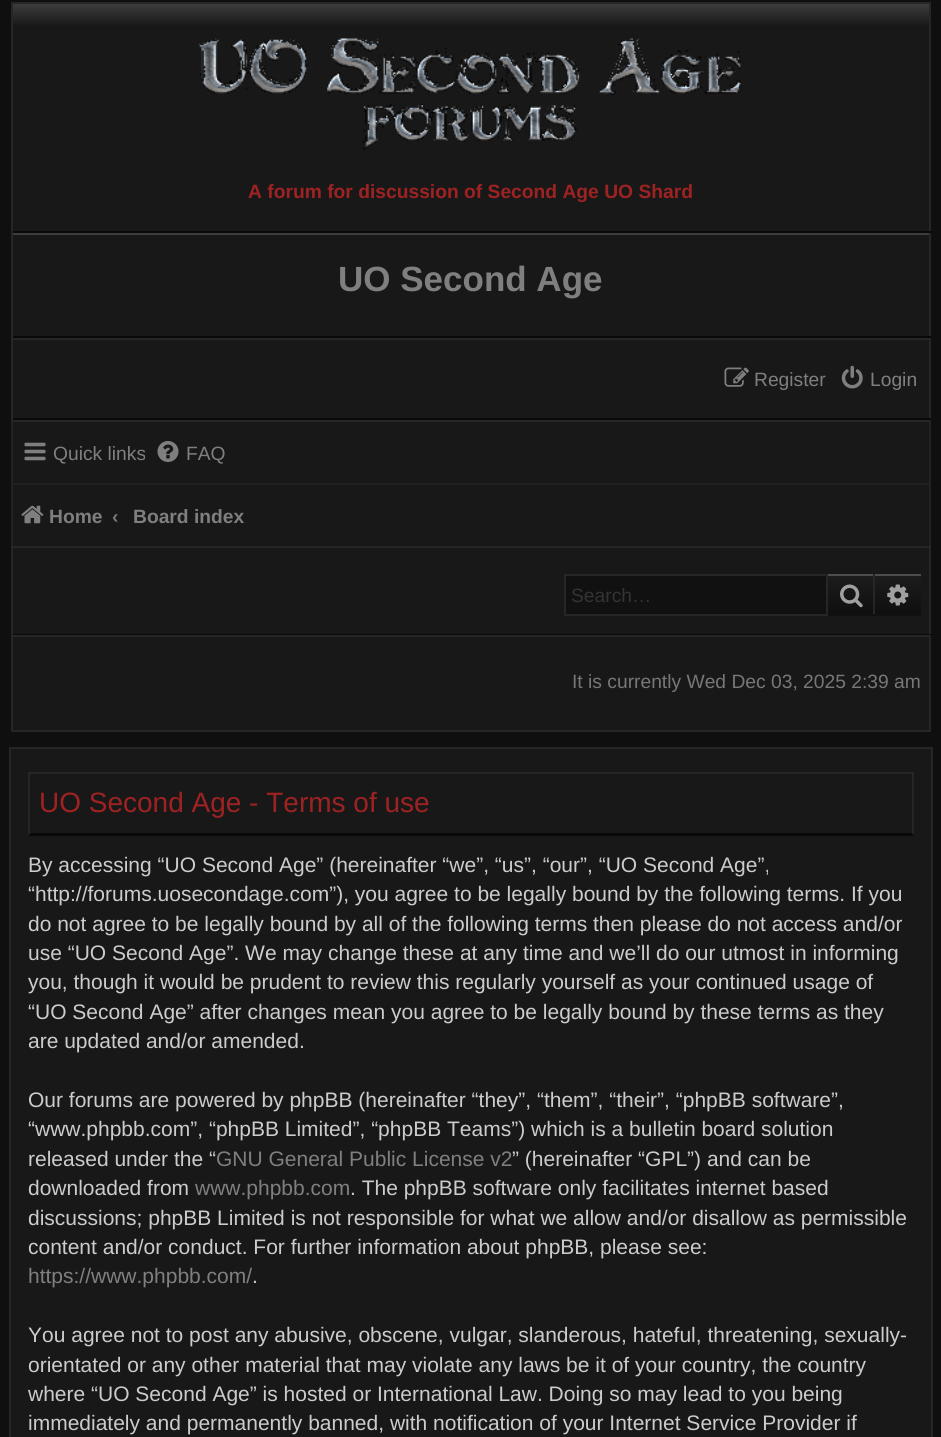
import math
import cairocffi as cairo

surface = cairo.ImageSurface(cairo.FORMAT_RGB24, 941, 1437)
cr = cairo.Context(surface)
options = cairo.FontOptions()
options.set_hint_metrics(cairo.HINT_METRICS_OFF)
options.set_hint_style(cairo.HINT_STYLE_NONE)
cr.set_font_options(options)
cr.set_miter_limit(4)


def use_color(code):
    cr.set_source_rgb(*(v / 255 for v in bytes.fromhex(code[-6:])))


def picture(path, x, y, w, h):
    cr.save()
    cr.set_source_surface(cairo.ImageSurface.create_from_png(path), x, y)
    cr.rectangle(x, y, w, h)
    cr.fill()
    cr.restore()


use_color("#0f0f0f")
cr.paint()
gradient = cairo.LinearGradient(471, 3.5, 471, 231)
gradient.add_color_stop_rgba(0, 0.239, 0.239, 0.239, 1)
gradient.add_color_stop_rgba(0.1, 0.094, 0.094, 0.094, 1)
gradient.add_color_stop_rgba(1, 0.094, 0.094, 0.094, 1)
cr.set_source(gradient)
cr.rectangle(13, 4, 916, 227)
cr.fill()
use_color("#262626")
cr.rectangle(11, 2, 920, 2)
cr.fill()
cr.rectangle(929, 2, 2, 231)
cr.fill()
use_color("#090909")
cr.rectangle(11, 231, 920, 2)
cr.fill()
use_color("#262626")
cr.rectangle(11, 2, 2, 231)
cr.fill()
picture("img1.png", 198, 38, 543, 112)
cr.select_font_face("Liberation Sans", cairo.FONT_SLANT_NORMAL, cairo.FONT_WEIGHT_BOLD)
cr.set_font_size(19.25)
use_color("#9e2222")
cr.move_to(248, 198)
cr.show_text("A forum for discussion of Second Age UO Shard")
use_color("#181818")
cr.rectangle(13, 235, 916, 101)
cr.fill()
use_color("#3d3d3d")
cr.rectangle(11, 233, 920, 2)
cr.fill()
use_color("#262626")
cr.rectangle(929, 233, 2, 105)
cr.fill()
use_color("#090909")
cr.rectangle(11, 336, 920, 2)
cr.fill()
use_color("#262626")
cr.rectangle(11, 233, 2, 105)
cr.fill()
cr.set_font_size(35)
use_color("#7f7f7f")
cr.move_to(338, 291)
cr.show_text("UO Second Age")
use_color("#181818")
cr.rectangle(13, 340, 916, 78)
cr.fill()
use_color("#262626")
cr.rectangle(11, 338, 920, 2)
cr.fill()
cr.rectangle(929, 338, 2, 82)
cr.fill()
use_color("#090909")
cr.rectangle(11, 418, 920, 2)
cr.fill()
use_color("#262626")
cr.rectangle(11, 338, 2, 82)
cr.fill()
picture("img2.png", 724, 367, 25, 20)
cr.select_font_face("Liberation Sans")
cr.set_font_size(19.25)
use_color("#7f7f7f")
cr.move_to(754, 386)
cr.show_text("Register")
picture("img3.png", 841, 365, 22, 24)
cr.move_to(870, 386)
cr.show_text("Login")
use_color("#181818")
cr.rectangle(13, 422, 916, 124)
cr.fill()
use_color("#262626")
cr.rectangle(11, 420, 920, 2)
cr.fill()
use_color("#222222")
cr.rectangle(929, 420, 2, 128)
cr.fill()
cr.rectangle(11, 420, 2, 128)
cr.fill()
picture("img4.png", 24, 442, 22, 19)
use_color("#7f7f7f")
cr.move_to(53, 460)
cr.show_text("Quick links")
picture("img5.png", 157, 441, 22, 21)
cr.move_to(186, 460)
cr.show_text("FAQ")
use_color("#212121")
cr.rectangle(12, 483, 917, 2)
cr.fill()
picture("img6.png", 21, 505, 23, 19)
cr.select_font_face("Liberation Sans", cairo.FONT_SLANT_NORMAL, cairo.FONT_WEIGHT_BOLD)
use_color("#7f7f7f")
cr.move_to(49, 523)
cr.show_text("Home")
use_color("#777777")
cr.move_to(112, 523)
cr.show_text("‹")
use_color("#7f7f7f")
cr.move_to(133, 523)
cr.show_text("Board index")
use_color("#181818")
cr.rectangle(13, 548, 916, 86)
cr.fill()
use_color("#262626")
cr.rectangle(11, 546, 920, 2)
cr.fill()
cr.rectangle(929, 546, 2, 89)
cr.fill()
use_color("#090909")
cr.rectangle(11, 634, 920, 1)
cr.fill()
use_color("#262626")
cr.rectangle(11, 546, 2, 89)
cr.fill()
gradient = cairo.LinearGradient(851, 576, 851, 614)
gradient.add_color_stop_rgba(0, 0.11, 0.11, 0.11, 1)
gradient.add_color_stop_rgba(1, 0.059, 0.059, 0.059, 1)
cr.set_source(gradient)
cr.rectangle(828, 576, 45, 38)
cr.fill()
use_color("#4d4d4d")
cr.rectangle(826, 574, 95, 2)
cr.fill()
use_color("#262626")
cr.rectangle(873, 574, 2, 42)
cr.fill()
use_color("#111111")
cr.rectangle(826, 614, 95, 2)
cr.fill()
use_color("#262626")
cr.rectangle(826, 574, 2, 42)
cr.fill()
picture("img7.png", 840, 584, 23, 24)
use_color("#111111")
cr.rectangle(566, 576, 260, 38)
cr.fill()
use_color("#262626")
cr.rectangle(564, 574, 262, 2)
cr.fill()
cr.rectangle(564, 614, 262, 2)
cr.fill()
cr.rectangle(564, 574, 2, 42)
cr.fill()
cr.select_font_face("Liberation Sans")
use_color("#333333")
cr.move_to(571, 602)
cr.show_text("Search…")
gradient = cairo.LinearGradient(898, 576, 898, 614)
gradient.add_color_stop_rgba(0, 0.11, 0.11, 0.11, 1)
gradient.add_color_stop_rgba(1, 0.059, 0.059, 0.059, 1)
cr.set_source(gradient)
cr.rectangle(875, 576, 46, 38)
cr.fill()
picture("img8.png", 887, 584, 22, 22)
use_color("#181818")
cr.rectangle(12, 636, 918, 95)
cr.fill_preserve()
use_color("#262626")
cr.stroke()
use_color("#777777")
cr.move_to(572, 688)
cr.show_text("It is currently Wed Dec 03, 2025 2:39 am")
use_color("#181818")
cr.rectangle(11, 749, 920, 688)
cr.fill()
use_color("#262626")
cr.rectangle(9, 747, 924, 2)
cr.fill()
cr.rectangle(931, 747, 2, 690)
cr.fill()
cr.rectangle(9, 747, 2, 690)
cr.fill()
cr.rectangle(28, 772, 886, 2)
cr.fill()
cr.new_path()
cr.move_to(914, 772)
cr.line_to(914, 836)
cr.line_to(912, 833)
cr.line_to(912, 774)
cr.close_path()
cr.fill()
use_color("#090909")
cr.new_path()
cr.move_to(914, 836)
cr.line_to(28, 836)
cr.line_to(30, 833)
cr.line_to(912, 833)
cr.close_path()
cr.fill()
use_color("#262626")
cr.new_path()
cr.move_to(28, 836)
cr.line_to(28, 772)
cr.line_to(30, 774)
cr.line_to(30, 833)
cr.close_path()
cr.fill()
cr.set_font_size(28)
use_color("#9e2222")
cr.move_to(39, 812)
cr.show_text("UO Second Age - Terms of use")
cr.set_font_size(21)
use_color("#cccccc")
cr.move_to(28, 872)
cr.show_text("By accessing “UO Second Age” (hereinafter “we”, “us”, “our”, “UO Second Age”,")
cr.move_to(28, 901)
cr.show_text("“http://forums.uosecondage.com”), you agree to be legally bound by the following terms. If you")
cr.move_to(28, 931)
cr.show_text("do not agree to be legally bound by all of the following terms then please do not access and/or")
cr.move_to(28, 960)
cr.show_text("use “UO Second Age”. We may change these at any time and we’ll do our utmost in informing")
cr.move_to(28, 989)
cr.show_text("you, though it would be prudent to review this regularly yourself as your continued usage of")
cr.move_to(28, 1019)
cr.show_text("“UO Second Age” after changes mean you agree to be legally bound by these terms as they")
cr.move_to(28, 1048)
cr.show_text("are updated and/or amended.")
cr.move_to(28, 1107)
cr.show_text("Our forums are powered by phpBB (hereinafter “they”, “them”, “their”, “phpBB software”,")
cr.move_to(28, 1136)
cr.show_text("“www.phpbb.com”, “phpBB Limited”, “phpBB Teams”) which is a bulletin board solution")
cr.move_to(28, 1166)
cr.show_text("released under the “")
use_color("#7f7f7f")
cr.move_to(216, 1166)
cr.show_text("GNU General Public License v2")
use_color("#cccccc")
cr.move_to(512, 1166)
cr.show_text("” (hereinafter “GPL”) and can be")
cr.move_to(28, 1195)
cr.show_text("downloaded from")
use_color("#7f7f7f")
cr.move_to(195, 1195)
cr.show_text("www.phpbb.com")
use_color("#cccccc")
cr.move_to(350, 1195)
cr.show_text(". The phpBB software only facilitates internet based")
cr.move_to(28, 1225)
cr.show_text("discussions; phpBB Limited is not responsible for what we allow and/or disallow as permissible")
cr.move_to(28, 1254)
cr.show_text("content and/or conduct. For further information about phpBB, please see:")
use_color("#7f7f7f")
cr.move_to(28, 1283)
cr.show_text("https://www.phpbb.com/")
use_color("#cccccc")
cr.move_to(252, 1283)
cr.show_text(".")
cr.move_to(28, 1342)
cr.show_text("You agree not to post any abusive, obscene, vulgar, slanderous, hateful, threatening, sexually-")
cr.move_to(28, 1372)
cr.show_text("orientated or any other material that may violate any laws be it of your country, the country")
cr.move_to(28, 1401)
cr.show_text("where “UO Second Age” is hosted or International Law. Doing so may lead to you being")
cr.move_to(28, 1430)
cr.show_text("immediately and permanently banned, with notification of your Internet Service Provider if")
surface.write_to_png("result.png")
